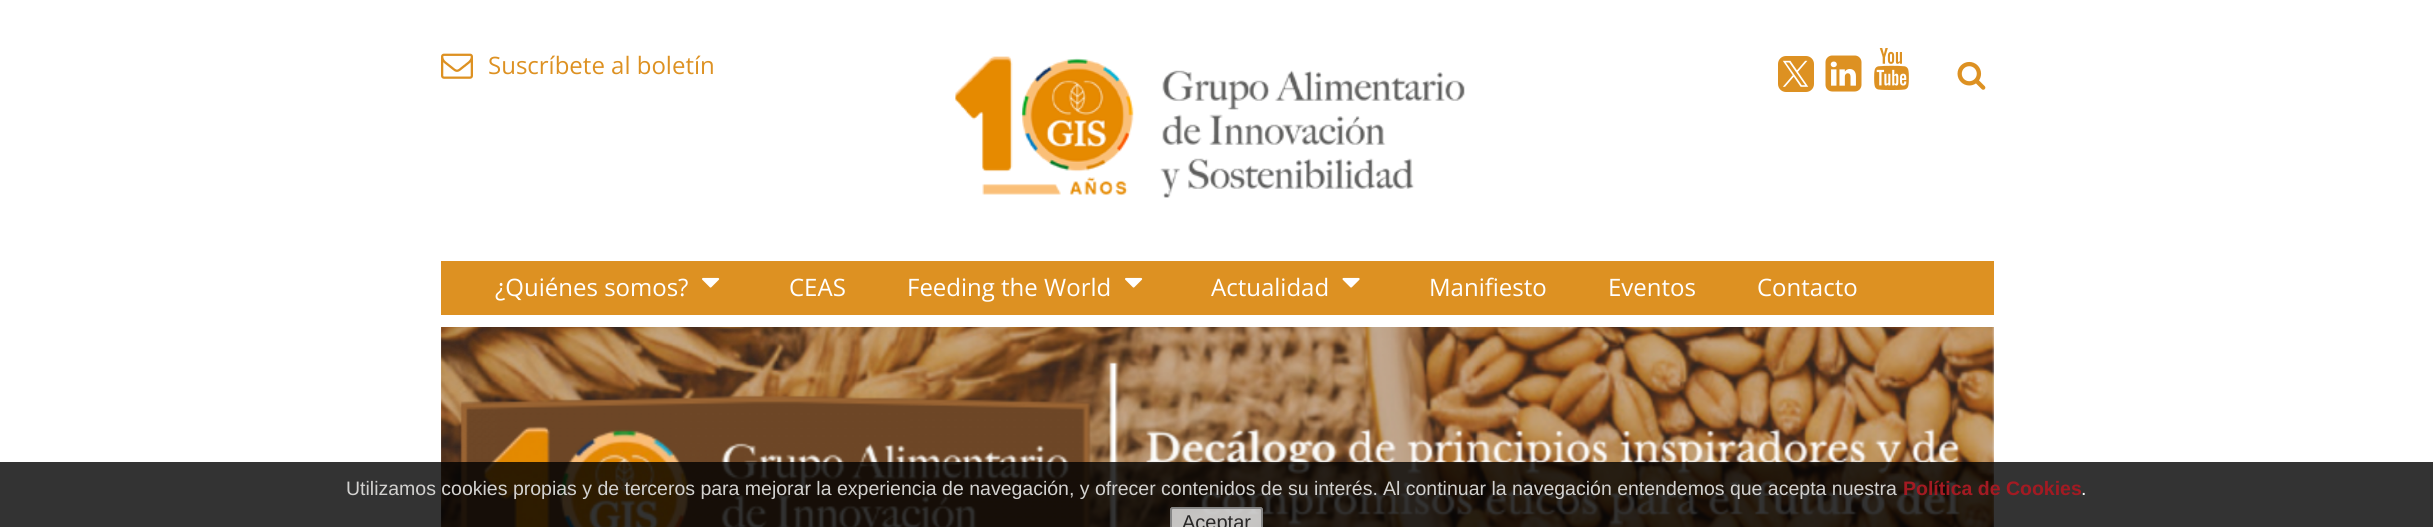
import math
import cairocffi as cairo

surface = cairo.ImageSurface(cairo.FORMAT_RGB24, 2433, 527)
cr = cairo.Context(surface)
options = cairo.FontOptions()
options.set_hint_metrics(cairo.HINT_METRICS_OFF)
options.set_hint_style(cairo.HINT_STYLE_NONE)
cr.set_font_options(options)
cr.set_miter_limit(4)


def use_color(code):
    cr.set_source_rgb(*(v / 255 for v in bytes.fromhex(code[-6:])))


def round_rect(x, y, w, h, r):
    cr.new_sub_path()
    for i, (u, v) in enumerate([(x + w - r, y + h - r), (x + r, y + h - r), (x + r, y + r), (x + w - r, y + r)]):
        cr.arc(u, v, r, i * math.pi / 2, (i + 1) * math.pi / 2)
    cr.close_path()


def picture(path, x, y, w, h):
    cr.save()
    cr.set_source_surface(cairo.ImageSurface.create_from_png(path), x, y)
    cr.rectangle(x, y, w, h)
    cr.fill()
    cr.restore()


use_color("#ffffff")
cr.paint()
picture("img1.png", 441, 53, 32, 26)
cr.select_font_face("Open Sans")
cr.set_font_size(24)
use_color("#dd9122")
cr.move_to(488, 74)
cr.show_text("Suscríbete al boletín")
picture("img2.png", 955, 56, 510, 142)
round_rect(1778, 56, 36, 36, 8)
cr.fill()
picture("img3.png", 1782, 60, 27, 27)
picture("img4.png", 1825, 55, 37, 37)
picture("img5.png", 1874, 48, 35, 42)
picture("img6.png", 1957, 61, 29, 29)
cr.rectangle(441, 261, 1553, 54)
cr.fill()
use_color("#ffffff")
cr.move_to(495, 296)
cr.show_text("¿Quiénes somos?")
picture("img7.png", 702, 277, 18, 11)
cr.move_to(789, 296)
cr.show_text("CEAS")
cr.move_to(907, 296)
cr.show_text("Feeding the World")
picture("img7.png", 1125, 277, 18, 11)
cr.move_to(1211, 296)
cr.show_text("Actualidad")
picture("img8.png", 1342, 277, 18, 11)
cr.move_to(1429, 296)
cr.show_text("Manifiesto")
cr.move_to(1608, 296)
cr.show_text("Eventos")
cr.move_to(1757, 296)
cr.show_text("Contacto")
picture("img9.png", 441, 327, 1553, 200)
cr.set_source_rgba(0, 0, 0, 0.8)
cr.rectangle(0, 462, 2433, 65)
cr.fill()
cr.select_font_face("Liberation Sans")
cr.set_font_size(19.5)
use_color("#d2d1cf")
cr.move_to(346, 495)
cr.show_text("Utilizamos cookies propias y de terceros para mejorar la experiencia de navegación, y ofrecer contenidos de su interés.")
cr.move_to(1383, 495)
cr.show_text("Al continuar la navegación entendemos que acepta nuestra")
cr.select_font_face("Liberation Sans", cairo.FONT_SLANT_NORMAL, cairo.FONT_WEIGHT_BOLD)
use_color("#a31a22")
cr.move_to(1903, 495)
cr.show_text("Política de Cookies")
cr.select_font_face("Liberation Sans")
use_color("#ffffff")
cr.move_to(2081, 495)
cr.show_text(".")
cr.set_source_rgba(0.937, 0.937, 0.937, 0.8)
round_rect(1170, 507, 93, 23, 3)
cr.fill()
round_rect(1171, 508, 91, 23, 2)
cr.set_source_rgba(0.463, 0.463, 0.463, 0.8)
cr.stroke()
cr.set_font_size(20)
use_color("#282727")
cr.move_to(1182, 529)
cr.show_text("Aceptar")
surface.write_to_png("result.png")
